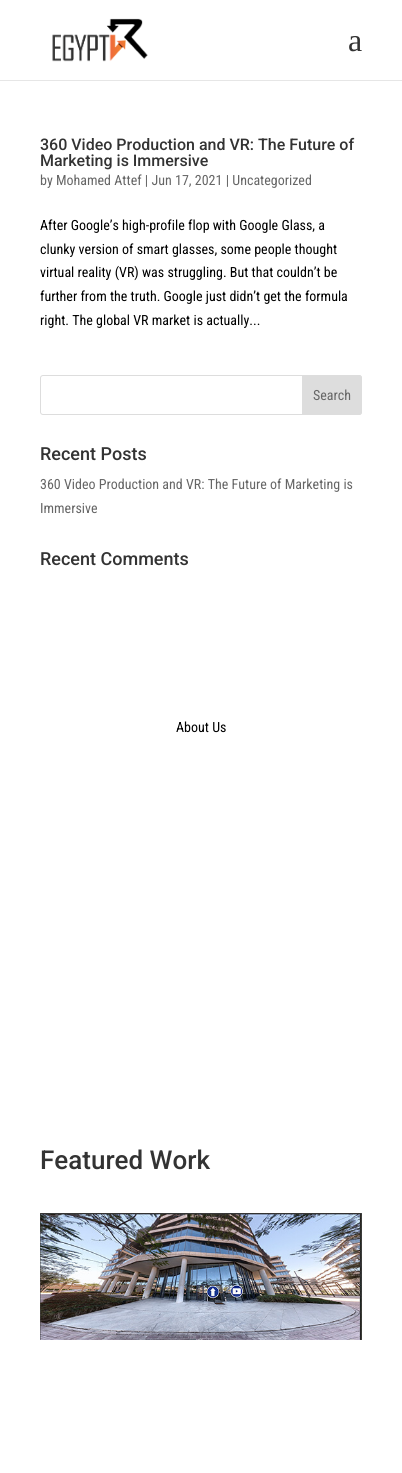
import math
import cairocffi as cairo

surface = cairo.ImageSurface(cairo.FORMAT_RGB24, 402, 1473)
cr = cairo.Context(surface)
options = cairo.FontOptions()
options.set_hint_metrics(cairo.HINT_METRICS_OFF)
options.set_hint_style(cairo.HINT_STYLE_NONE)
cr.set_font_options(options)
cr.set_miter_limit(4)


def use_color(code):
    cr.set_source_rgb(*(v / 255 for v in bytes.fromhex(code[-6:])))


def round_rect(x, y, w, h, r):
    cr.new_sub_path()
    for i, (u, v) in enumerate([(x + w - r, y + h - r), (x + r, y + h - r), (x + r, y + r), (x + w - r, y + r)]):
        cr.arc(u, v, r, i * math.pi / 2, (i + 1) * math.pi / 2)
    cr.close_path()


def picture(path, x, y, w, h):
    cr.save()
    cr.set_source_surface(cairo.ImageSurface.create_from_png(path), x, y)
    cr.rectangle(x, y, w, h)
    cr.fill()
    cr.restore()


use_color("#ffffff")
cr.paint()
use_color("#e6e6e6")
cr.rectangle(0, 80, 402, 1)
cr.fill()
picture("img1.png", 52, 18, 96, 44)
cr.select_font_face("Liberation Serif")
cr.set_font_size(32)
use_color("#333333")
cr.move_to(348, 51)
cr.show_text("a")
cr.select_font_face("Roboto Medium")
cr.set_font_size(16)
cr.move_to(40, 150)
cr.show_text("360 Video Production and VR: The Future of")
cr.move_to(40, 166)
cr.show_text("Marketing is Immersive")
cr.select_font_face("Roboto Condensed")
cr.set_font_size(14)
use_color("#666666")
cr.move_to(40, 185)
cr.show_text("by Mohamed Attef | Jun 17, 2021 | Uncategorized")
use_color("#000000")
cr.move_to(40, 230)
cr.show_text("After Google’s high-profile flop with Google Glass, a")
cr.move_to(40, 254)
cr.show_text("clunky version of smart glasses, some people thought")
cr.move_to(40, 277)
cr.show_text("virtual reality (VR) was struggling. But that couldn’t be")
cr.move_to(40, 301)
cr.show_text("further from the truth. Google just didn’t get the formula")
cr.move_to(40, 325)
cr.show_text("right. The global VR market is actually...")
round_rect(40.5, 375.5, 321, 39, 2.5)
use_color("#dddddd")
cr.set_line_width(1)
cr.stroke()
cr.new_path()
cr.move_to(302.5, 375.5)
cr.line_to(359, 375.5)
cr.curve_to(360.5, 375.5, 361.5, 376.5, 361.5, 378)
cr.line_to(361.5, 412)
cr.curve_to(361.5, 413.5, 360.5, 414.5, 359, 414.5)
cr.line_to(302.5, 414.5)
cr.close_path()
cr.fill_preserve()
cr.stroke()
use_color("#666666")
cr.move_to(313, 400)
cr.show_text("Search")
cr.select_font_face("Roboto Medium")
cr.set_font_size(18)
use_color("#333333")
cr.move_to(40, 460)
cr.show_text("Recent Posts")
cr.select_font_face("Roboto Condensed")
cr.set_font_size(14)
use_color("#666666")
cr.move_to(40, 489)
cr.show_text("360 Video Production and VR: The Future of Marketing is")
cr.move_to(40, 513)
cr.show_text("Immersive")
cr.select_font_face("Roboto Medium")
cr.set_font_size(18)
use_color("#333333")
cr.move_to(40, 565)
cr.show_text("Recent Comments")
cr.select_font_face("Roboto Condensed")
cr.set_font_size(14)
use_color("#000000")
cr.move_to(176, 732)
cr.show_text("About Us")
cr.select_font_face("Roboto Medium")
cr.set_font_size(26)
use_color("#333333")
cr.move_to(40, 1169)
cr.show_text("Featured Work")
picture("img2.png", 40, 1213, 322, 127)
surface.write_to_png("result.png")
